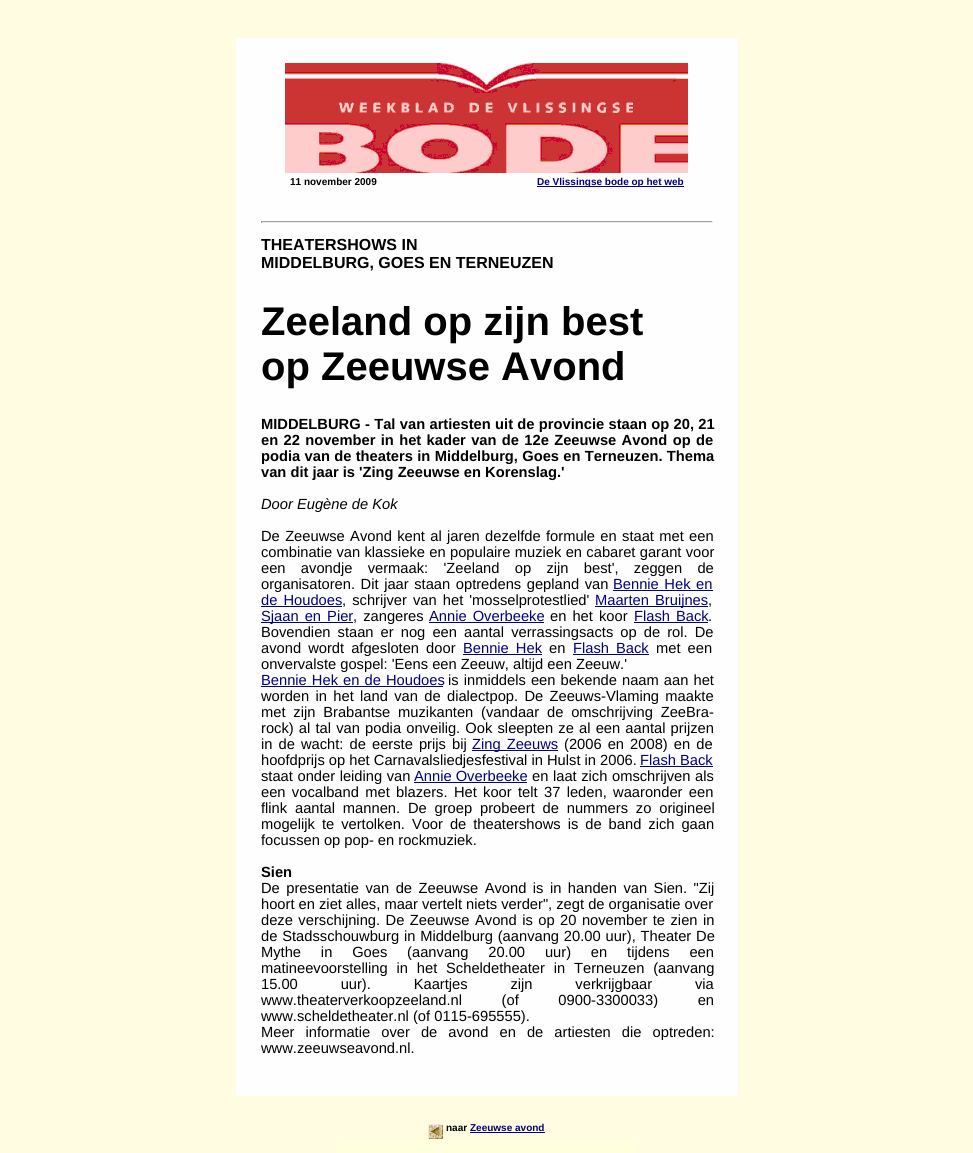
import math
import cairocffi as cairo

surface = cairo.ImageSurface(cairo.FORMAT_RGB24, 973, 1153)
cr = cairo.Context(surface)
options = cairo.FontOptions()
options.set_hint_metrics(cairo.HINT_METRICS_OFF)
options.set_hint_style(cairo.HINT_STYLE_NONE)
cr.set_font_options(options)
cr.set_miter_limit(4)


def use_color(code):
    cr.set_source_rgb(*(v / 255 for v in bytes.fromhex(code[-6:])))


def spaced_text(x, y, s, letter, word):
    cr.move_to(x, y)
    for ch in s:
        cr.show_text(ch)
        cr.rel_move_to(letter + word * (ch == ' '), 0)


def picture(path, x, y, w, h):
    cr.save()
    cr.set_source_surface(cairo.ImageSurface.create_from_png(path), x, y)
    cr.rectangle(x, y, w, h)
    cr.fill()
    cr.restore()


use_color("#fffce2")
cr.paint()
use_color("#fefefe")
cr.rectangle(236, 38, 502, 1058)
cr.fill()
picture("img1.png", 285, 63, 403, 110)
cr.select_font_face("Liberation Sans", cairo.FONT_SLANT_NORMAL, cairo.FONT_WEIGHT_BOLD)
cr.set_font_size(10)
use_color("#000000")
cr.move_to(290, 185)
cr.show_text("11 november 2009")
use_color("#000080")
cr.rectangle(537, 186, 147, 1)
cr.fill()
cr.move_to(537, 185)
cr.show_text("De Vlissingse bode op het web")
use_color("#9f9f9f")
cr.rectangle(261, 221, 452, 1)
cr.fill()
use_color("#eeeeee")
cr.rectangle(712, 221, 1, 2)
cr.fill()
cr.rectangle(261, 222, 452, 1)
cr.fill()
use_color("#9f9f9f")
cr.rectangle(261, 221, 1, 2)
cr.fill()
cr.set_font_size(16)
use_color("#000000")
cr.move_to(261, 250)
cr.show_text("THEATERSHOWS IN")
cr.move_to(261, 268)
cr.show_text("MIDDELBURG, GOES EN TERNEUZEN")
cr.set_font_size(40)
cr.move_to(261, 335)
cr.show_text("Zeeland op zijn best")
cr.move_to(261, 380)
cr.show_text("op Zeeuwse Avond")
cr.set_font_size(14.7)
spaced_text(261, 429, "MIDDELBURG - Tal van artiesten uit de provincie staan op 20, 21", 0, 0.25)
spaced_text(261, 445, "en 22 november in het kader van de 12e Zeeuwse Avond op de", 0, 1.25)
spaced_text(261, 461, "podia van de theaters in Middelburg, Goes en Terneuzen. Thema", 0, 0.25)
cr.move_to(261, 477)
cr.show_text("van dit jaar is 'Zing Zeeuwse en Korenslag.'")
cr.select_font_face("Liberation Sans", cairo.FONT_SLANT_ITALIC)
cr.move_to(261, 509)
cr.show_text("Door Eugène de Kok")
cr.select_font_face("Liberation Sans")
spaced_text(261, 541, "De Zeeuwse Avond kent al jaren dezelfde formule en staat met een", 0, 1.25)
spaced_text(261, 557, "combinatie van klassieke en populaire muziek en cabaret garant voor", 0, 0.25)
spaced_text(261, 573, "een avondje vermaak: 'Zeeland op zijn best', zeggen de", 0, 11.25)
spaced_text(261, 589, "organisatoren. Dit jaar staan optredens gepland van", 0, 1.5)
use_color("#000080")
spaced_text(613, 589, "Bennie Hek en", 0, 1.5)
cr.rectangle(613, 590, 100, 1)
cr.fill()
spaced_text(261, 605, "de Houdoes", 0, 2)
cr.rectangle(261, 606, 81, 1)
cr.fill()
use_color("#000000")
spaced_text(342, 605, ", schrijver van het 'mosselprotestlied'", 0, 2)
use_color("#000080")
cr.rectangle(595, 606, 113, 1)
cr.fill()
spaced_text(595, 605, "Maarten Bruijnes", 0, 2)
use_color("#000000")
cr.move_to(708, 605)
cr.show_text(",")
use_color("#000080")
cr.rectangle(261, 622, 92, 1)
cr.fill()
spaced_text(261, 621, "Sjaan en Pier", 0, 2)
use_color("#000000")
spaced_text(353, 621, ", zangeres", 0, 2)
use_color("#000080")
spaced_text(429, 621, "Annie Overbeeke", 0, 2)
cr.rectangle(429, 622, 115, 1)
cr.fill()
use_color("#000000")
spaced_text(550, 621, "en het koor", 0, 2)
use_color("#000080")
spaced_text(634, 621, "Flash Back", 0, 2)
cr.rectangle(634, 622, 74, 1)
cr.fill()
use_color("#000000")
cr.move_to(708, 621)
cr.show_text(".")
spaced_text(261, 637, "Bovendien staan er nog een aantal verrassingsacts op de rol. De", 0, 3)
spaced_text(261, 653, "avond wordt afgesloten door", 0, 3)
use_color("#000080")
spaced_text(463, 653, "Bennie Hek", 0, 3)
cr.rectangle(463, 654, 79, 1)
cr.fill()
use_color("#000000")
cr.move_to(549, 653)
cr.show_text("en")
use_color("#000080")
spaced_text(573, 653, "Flash Back", 0, 3)
cr.rectangle(573, 654, 76, 1)
cr.fill()
use_color("#000000")
spaced_text(656, 653, "met een", 0, 3)
cr.move_to(261, 669)
cr.show_text("onvervalste gospel: 'Eens een Zeeuw, altijd een Zeeuw.'")
use_color("#000080")
spaced_text(261, 685, "Bennie Hek en de Houdoes", 0, 1)
cr.rectangle(261, 686, 182, 1)
cr.fill()
use_color("#000000")
spaced_text(448, 685, "is inmiddels een bekende naam aan het", 0, 1)
spaced_text(261, 701, "worden in het land van de dialectpop. De Zeeuws-Vlaming maakte", 0, 2.25)
spaced_text(261, 717, "met zijn Brabantse muzikanten (vandaar de omschrijving ZeeBra-", 0, 3.75)
spaced_text(261, 733, "rock) al tal van podia onveilig. Ook sleepten ze al een aantal prijzen", 0, 1.1)
spaced_text(261, 749, "in de wacht: de eerste prijs bij", 0, 2)
use_color("#000080")
cr.rectangle(472, 750, 86, 1)
cr.fill()
spaced_text(472, 749, "Zing Zeeuws", 0, 2)
use_color("#000000")
spaced_text(564, 749, "(2006 en 2008) en de", 0, 2)
cr.move_to(261, 765)
cr.show_text("hoofdprijs op het Carnavalsliedjesfestival in Hulst in 2006.")
use_color("#000080")
cr.move_to(640, 765)
cr.show_text("Flash Back")
cr.rectangle(640, 766, 73, 1)
cr.fill()
use_color("#000000")
spaced_text(261, 781, "staat onder leiding van", 0, 0.5)
use_color("#000080")
cr.move_to(414, 781)
cr.show_text("Annie Overbeeke")
cr.rectangle(414, 782, 113, 1)
cr.fill()
use_color("#000000")
spaced_text(532, 781, "en laat zich omschrijven als", 0, 0.5)
spaced_text(261, 797, "een vocalband met blazers. Het koor telt 37 leden, waaronder een", 0, 2.25)
spaced_text(261, 813, "flink aantal mannen. De groep probeert de nummers zo origineel", 0, 3.75)
spaced_text(261, 829, "mogelijk te vertolken. Voor de theatershows is de band zich gaan", 0, 2.9)
cr.move_to(261, 845)
cr.show_text("focussen op pop- en rockmuziek.")
cr.select_font_face("Liberation Sans", cairo.FONT_SLANT_NORMAL, cairo.FONT_WEIGHT_BOLD)
cr.move_to(261, 877)
cr.show_text("Sien")
cr.select_font_face("Liberation Sans")
spaced_text(261, 893, "De presentatie van de Zeeuwse Avond is in handen van Sien. \"Zij", 0, 2.4)
cr.move_to(261, 909)
cr.show_text("hoort en ziet alles, maar vertelt niets verder\", zegt de organisatie over")
spaced_text(261, 925, "deze verschijning. De Zeeuwse Avond is op 20 november te zien in", 0, 1.4)
spaced_text(261, 941, "de Stadsschouwburg in Middelburg (aanvang 20.00 uur), Theater De", 0, 0.75)
spaced_text(261, 957, "Mythe in Goes (aanvang 20.00 uur) en tijdens een", 0, 15.75)
spaced_text(261, 973, "matineevoorstelling in het Scheldetheater in Terneuzen (aanvang", 0, 4.75)
spaced_text(261, 989, "15.00 uur). Kaartjes zijn verkrijgbaar via", 0, 38.75)
spaced_text(261, 1005, "www.theaterverkoopzeeland.nl (of 0900-3300033) en", 0, 35.5)
cr.move_to(261, 1021)
cr.show_text("www.scheldetheater.nl (of 0115-695555).")
spaced_text(261, 1037, "Meer informatie over de avond en de artiesten die optreden:", 0, 7)
cr.move_to(261, 1053)
cr.show_text("www.zeeuwseavond.nl.")
picture("img2.png", 428, 1124, 15, 15)
cr.select_font_face("Liberation Sans", cairo.FONT_SLANT_NORMAL, cairo.FONT_WEIGHT_BOLD)
cr.set_font_size(10)
cr.move_to(446, 1131)
cr.show_text("naar")
use_color("#000080")
cr.move_to(470, 1131)
cr.show_text("Zeeuwse avond")
cr.rectangle(470, 1132, 75, 1)
cr.fill()
use_color("#ffffdd")
cr.rectangle(337, 1139, 300, 14)
cr.fill()
surface.write_to_png("result.png")
